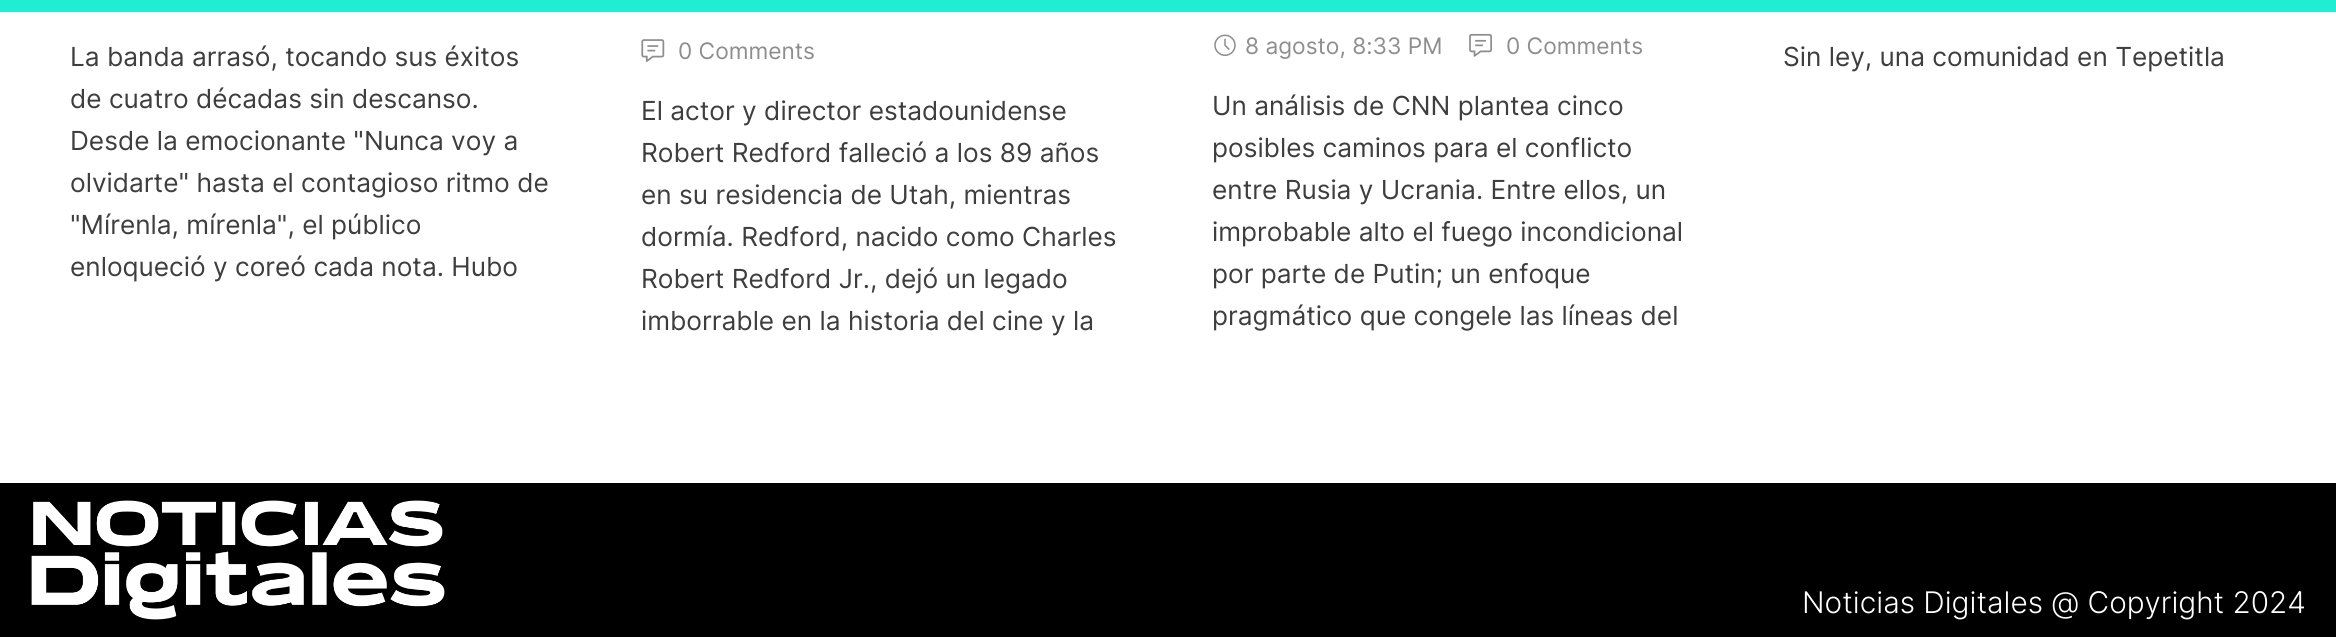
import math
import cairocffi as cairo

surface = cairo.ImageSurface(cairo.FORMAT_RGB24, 2336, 637)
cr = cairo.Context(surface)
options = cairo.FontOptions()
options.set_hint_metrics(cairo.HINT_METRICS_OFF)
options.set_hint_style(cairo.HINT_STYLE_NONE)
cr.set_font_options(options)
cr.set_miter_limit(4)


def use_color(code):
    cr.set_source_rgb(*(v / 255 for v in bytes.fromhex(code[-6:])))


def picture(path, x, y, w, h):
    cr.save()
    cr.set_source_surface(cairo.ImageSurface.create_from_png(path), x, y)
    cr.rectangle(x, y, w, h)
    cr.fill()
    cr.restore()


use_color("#ffffff")
cr.paint()
use_color("#21edd5")
cr.rectangle(0, 0, 2336, 12)
cr.fill()
cr.select_font_face("Inter")
cr.set_font_size(26.25)
use_color("#3e3e3e")
cr.move_to(70, 66)
cr.show_text("La banda arrasó, tocando sus éxitos")
cr.move_to(70, 108)
cr.show_text("de cuatro décadas sin descanso.")
cr.move_to(70, 150)
cr.show_text("Desde la emocionante \"Nunca voy a")
cr.move_to(70, 192)
cr.show_text("olvidarte\" hasta el contagioso ritmo de")
cr.move_to(70, 234)
cr.show_text("\"Mírenla, mírenla\", el público")
cr.move_to(70, 276)
cr.show_text("enloqueció y coreó cada nota. Hubo")
picture("img1.png", 641, 39, 24, 23)
cr.set_font_size(22.75)
use_color("#8e8e8e")
cr.move_to(678, 59)
cr.show_text("0 Comments")
cr.set_font_size(26.25)
use_color("#3e3e3e")
cr.move_to(641, 120)
cr.show_text("El actor y director estadounidense")
cr.move_to(641, 162)
cr.show_text("Robert Redford falleció a los 89 años")
cr.move_to(641, 204)
cr.show_text("en su residencia de Utah, mientras")
cr.move_to(641, 246)
cr.show_text("dormía. Redford, nacido como Charles")
cr.move_to(641, 288)
cr.show_text("Robert Redford Jr., dejó un legado")
cr.move_to(641, 330)
cr.show_text("imborrable en la historia del cine y la")
picture("img2.png", 1214, 34, 22, 22)
cr.set_font_size(22.75)
use_color("#8e8e8e")
cr.move_to(1245, 54)
cr.show_text("8 agosto, 8:33 PM")
picture("img3.png", 1469, 33, 23, 24)
cr.move_to(1506, 54)
cr.show_text("0 Comments")
cr.set_font_size(26.25)
use_color("#3e3e3e")
cr.move_to(1212, 115)
cr.show_text("Un análisis de CNN plantea cinco")
cr.move_to(1212, 157)
cr.show_text("posibles caminos para el conflicto")
cr.move_to(1212, 199)
cr.show_text("entre Rusia y Ucrania. Entre ellos, un")
cr.move_to(1212, 241)
cr.show_text("improbable alto el fuego incondicional")
cr.move_to(1212, 283)
cr.show_text("por parte de Putin; un enfoque")
cr.move_to(1212, 325)
cr.show_text("pragmático que congele las líneas del")
cr.move_to(1783, 66)
cr.show_text("Sin ley, una comunidad en Tepetitla")
use_color("#000000")
cr.rectangle(0, 483, 2336, 154)
cr.fill()
picture("img4.png", 31, 500, 414, 120)
cr.select_font_face("Inter Light")
cr.set_font_size(29.75)
use_color("#ffffff")
cr.move_to(1802, 613)
cr.show_text("Noticias Digitales @ Copyright 2024")
surface.write_to_png("result.png")
